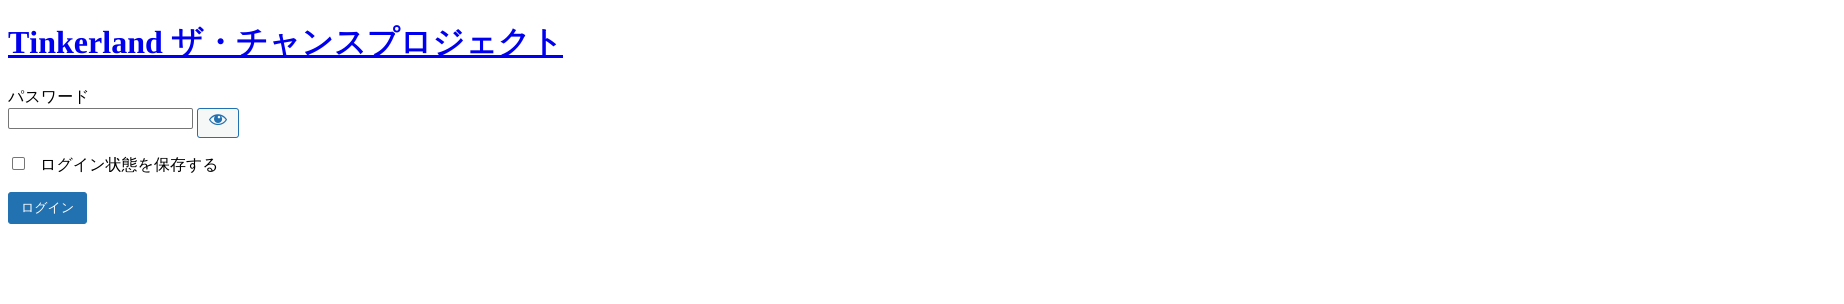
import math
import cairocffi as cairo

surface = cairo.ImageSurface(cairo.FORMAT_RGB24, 1844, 304)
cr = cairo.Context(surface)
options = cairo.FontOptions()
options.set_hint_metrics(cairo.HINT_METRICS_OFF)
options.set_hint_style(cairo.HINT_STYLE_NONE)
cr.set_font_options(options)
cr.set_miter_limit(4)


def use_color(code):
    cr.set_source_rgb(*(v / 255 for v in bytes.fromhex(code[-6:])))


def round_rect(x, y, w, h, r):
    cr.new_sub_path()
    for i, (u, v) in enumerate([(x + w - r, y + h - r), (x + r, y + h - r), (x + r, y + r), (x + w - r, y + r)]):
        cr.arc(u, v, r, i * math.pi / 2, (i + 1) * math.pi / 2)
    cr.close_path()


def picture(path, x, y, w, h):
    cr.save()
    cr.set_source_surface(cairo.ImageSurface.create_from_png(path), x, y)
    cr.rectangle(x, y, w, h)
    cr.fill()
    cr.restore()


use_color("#ffffff")
cr.paint()
cr.select_font_face("Liberation Serif", cairo.FONT_SLANT_NORMAL, cairo.FONT_WEIGHT_BOLD)
cr.set_font_size(32)
use_color("#0000ee")
cr.move_to(8, 53)
cr.show_text("Tinkerland")
cr.rectangle(8, 55, 555, 3)
cr.fill()
cr.select_font_face("WenQuanYi Zen Hei", cairo.FONT_SLANT_NORMAL, cairo.FONT_WEIGHT_BOLD)
cr.move_to(171, 53)
cr.show_text("ザ・チャンスプロジェクト")
cr.select_font_face("WenQuanYi Zen Hei Medium")
cr.set_font_size(16)
use_color("#000000")
cr.move_to(8, 102)
cr.show_text("パスワード")
round_rect(8.5, 108.5, 184, 20, 1.5)
use_color("#767676")
cr.set_line_width(1)
cr.stroke()
use_color("#f6f7f7")
round_rect(197.5, 108.5, 41, 29, 2.5)
cr.fill_preserve()
use_color("#2271b1")
cr.stroke()
picture("img1.png", 209, 114, 18, 12)
round_rect(12.5, 157.5, 12, 12, 1.5)
use_color("#767676")
cr.stroke()
use_color("#000000")
cr.move_to(40, 170)
cr.show_text("ログイン状態を保存する")
use_color("#2271b1")
round_rect(8.5, 192.5, 78, 31, 2.5)
cr.fill_preserve()
cr.stroke()
cr.set_font_size(13)
use_color("#ffffff")
cr.move_to(21, 212)
cr.show_text("ログイン")
surface.write_to_png("result.png")
